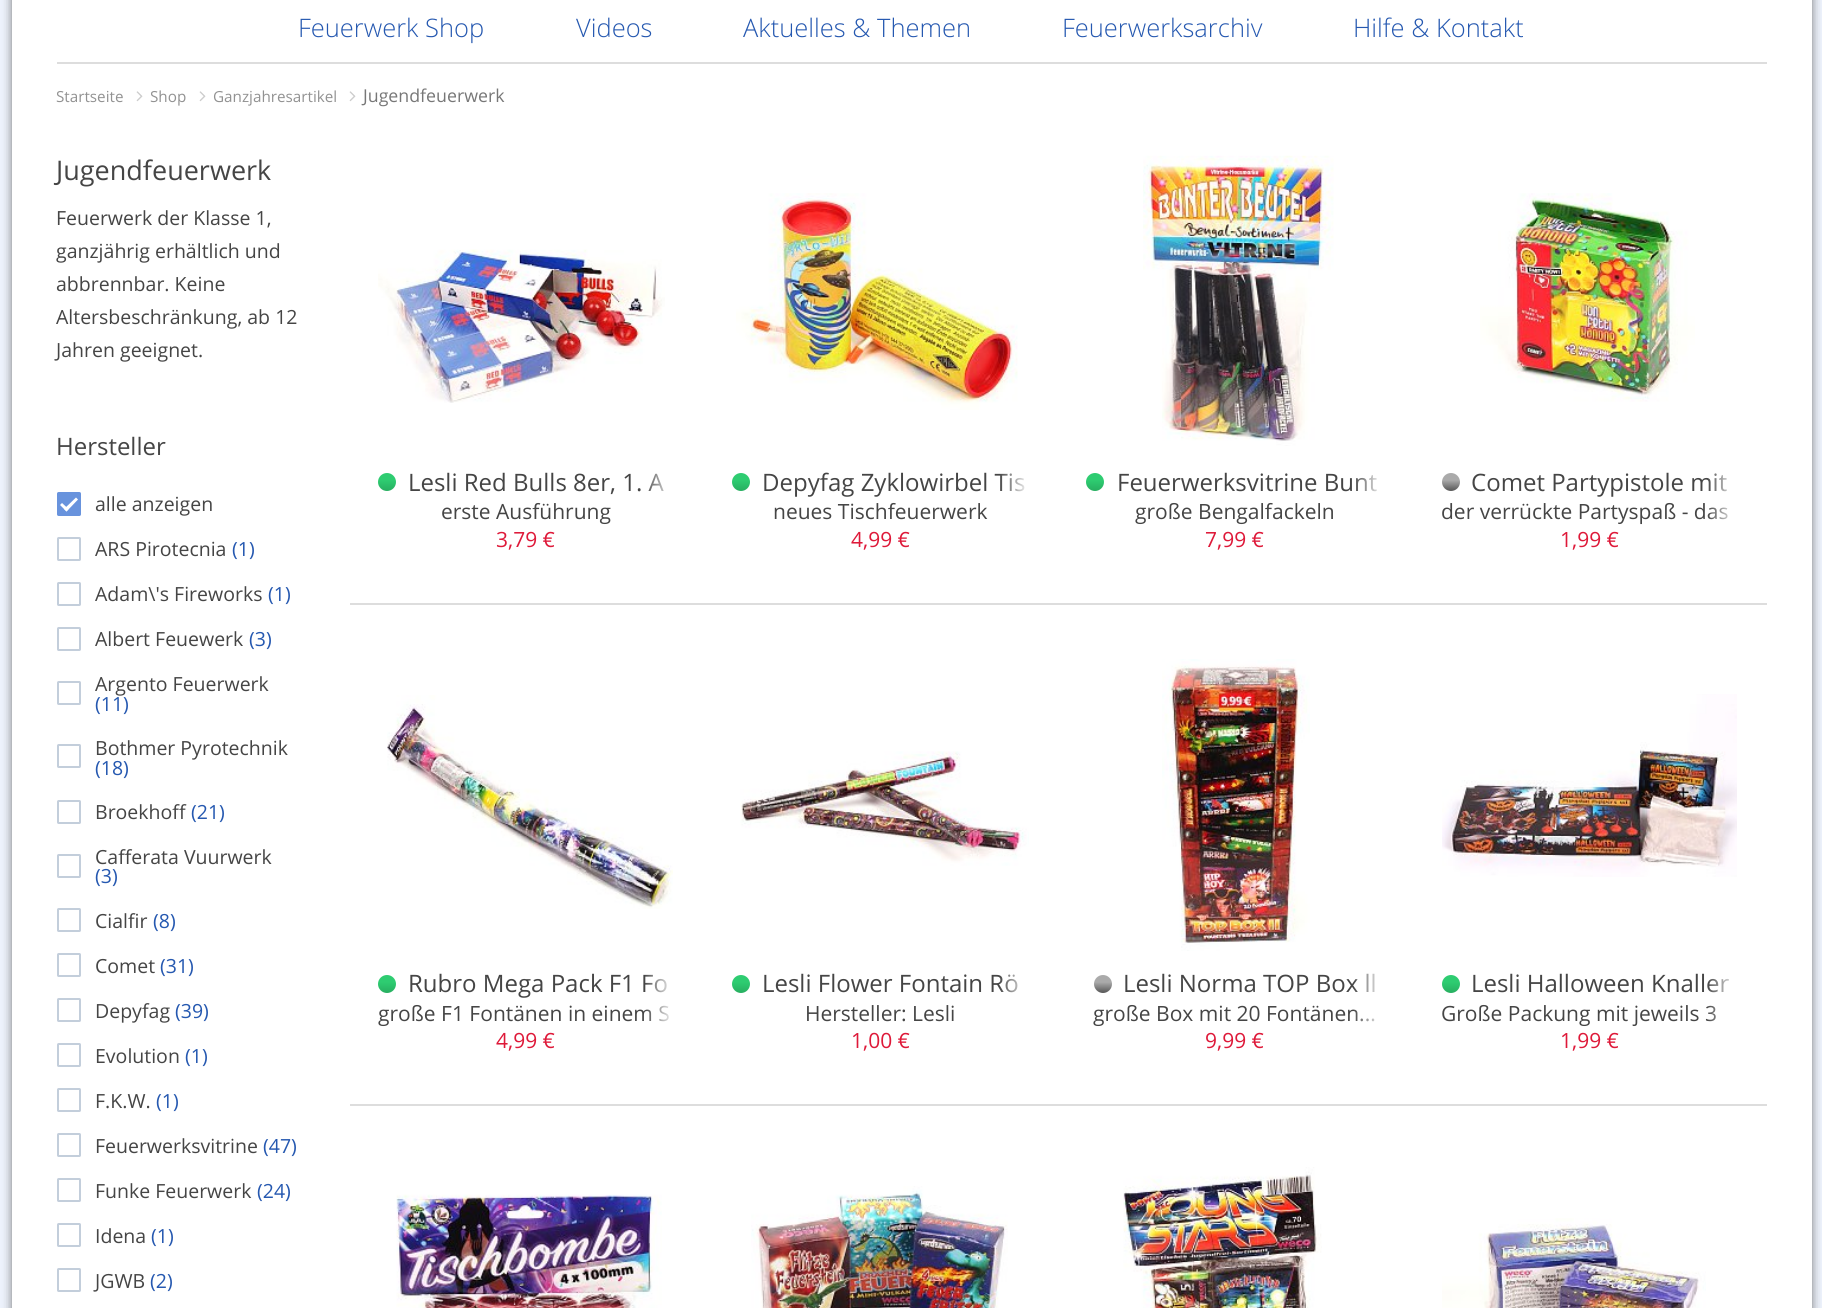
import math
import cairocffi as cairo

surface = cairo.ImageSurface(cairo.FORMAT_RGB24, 1822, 1308)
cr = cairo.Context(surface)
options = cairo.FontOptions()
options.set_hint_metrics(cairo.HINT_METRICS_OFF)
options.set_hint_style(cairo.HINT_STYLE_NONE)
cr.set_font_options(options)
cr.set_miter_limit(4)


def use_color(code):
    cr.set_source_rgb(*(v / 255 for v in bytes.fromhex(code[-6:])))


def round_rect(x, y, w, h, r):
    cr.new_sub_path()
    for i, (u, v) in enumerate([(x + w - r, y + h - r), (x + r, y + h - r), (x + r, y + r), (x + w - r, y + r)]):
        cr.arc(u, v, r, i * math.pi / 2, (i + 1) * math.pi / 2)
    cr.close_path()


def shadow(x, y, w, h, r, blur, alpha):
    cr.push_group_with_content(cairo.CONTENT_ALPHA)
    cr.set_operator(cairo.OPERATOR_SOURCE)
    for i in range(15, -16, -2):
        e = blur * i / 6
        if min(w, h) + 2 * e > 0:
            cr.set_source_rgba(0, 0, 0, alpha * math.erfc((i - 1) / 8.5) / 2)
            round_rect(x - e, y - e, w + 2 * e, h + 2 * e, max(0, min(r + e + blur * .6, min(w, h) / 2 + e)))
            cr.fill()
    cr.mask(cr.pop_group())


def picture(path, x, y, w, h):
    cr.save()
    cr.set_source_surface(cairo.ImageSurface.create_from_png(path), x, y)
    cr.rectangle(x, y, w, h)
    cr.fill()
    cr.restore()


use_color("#eef3fd")
cr.paint()
use_color("#777777")
shadow(12, -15, 1800, 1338, 0, 5, 1)
use_color("#ffffff")
cr.rectangle(12, 0, 1800, 1308)
cr.fill()
use_color("#dddddd")
cr.rectangle(57, 62, 1710, 2)
cr.fill()
cr.select_font_face("Open Sans Light")
cr.set_font_size(25.5)
use_color("#2558b0")
cr.move_to(298, 37)
cr.show_text("Feuerwerk Shop")
cr.move_to(576, 37)
cr.show_text("Videos")
cr.move_to(743, 37)
cr.show_text("Aktuelles & Themen")
cr.move_to(1062, 37)
cr.show_text("Feuerwerksarchiv")
cr.move_to(1353, 37)
cr.show_text("Hilfe & Kontakt")
cr.select_font_face("Open Sans")
cr.set_font_size(15.25)
use_color("#929292")
cr.move_to(56, 102)
cr.show_text("Startseite")
picture("img1.png", 136, 91, 7, 11)
cr.move_to(150, 102)
cr.show_text("Shop")
picture("img1.png", 199, 91, 7, 11)
cr.move_to(213, 102)
cr.show_text("Ganzjahresartikel")
picture("img1.png", 349, 91, 7, 11)
cr.set_font_size(17.75)
use_color("#777777")
cr.move_to(363, 102)
cr.show_text("Jugendfeuerwerk")
cr.set_font_size(27)
use_color("#454545")
cr.move_to(56, 180)
cr.show_text("Jugendfeuerwerk")
cr.set_font_size(19.5)
cr.move_to(56, 225)
cr.show_text("Feuerwerk der Klasse 1,")
cr.move_to(56, 258)
cr.show_text("ganzjährig erhältlich und")
cr.move_to(56, 291)
cr.show_text("abbrennbar. Keine")
cr.move_to(56, 324)
cr.show_text("Altersbeschränkung, ab 12")
cr.move_to(56, 357)
cr.show_text("Jahren geeignet.")
cr.set_font_size(24)
cr.move_to(56, 455)
cr.show_text("Hersteller")
use_color("#6893dd")
round_rect(58, 493, 22, 22, 0.5)
cr.fill_preserve()
cr.stroke()
cr.set_font_size(19.5)
use_color("#454545")
cr.move_to(95, 511)
cr.show_text("alle anzeigen")
use_color("#ffffff")
cr.new_path()
cr.move_to(64, 509)
cr.line_to(76, 497.5)
cr.line_to(78, 499.5)
cr.line_to(66.5, 511.5)
cr.close_path()
cr.fill()
cr.new_path()
cr.move_to(60, 505)
cr.line_to(62, 503)
cr.line_to(68.5, 509)
cr.line_to(66.5, 511.5)
cr.close_path()
cr.fill()
round_rect(58, 538, 22, 22, 0.5)
use_color("#c3cedb")
cr.stroke()
use_color("#454545")
cr.move_to(95, 556)
cr.show_text("ARS Pirotecnia")
use_color("#2558b0")
cr.move_to(232, 556)
cr.show_text("(1)")
round_rect(58, 583, 22, 22, 0.5)
use_color("#c3cedb")
cr.stroke()
use_color("#454545")
cr.move_to(95, 601)
cr.show_text("Adam\\'s Fireworks")
use_color("#2558b0")
cr.move_to(268, 601)
cr.show_text("(1)")
round_rect(58, 628, 22, 22, 0.5)
use_color("#c3cedb")
cr.stroke()
use_color("#454545")
cr.move_to(95, 646)
cr.show_text("Albert Feuewerk")
use_color("#2558b0")
cr.move_to(249, 646)
cr.show_text("(3)")
round_rect(58, 682, 22, 22, 0.5)
use_color("#c3cedb")
cr.stroke()
use_color("#454545")
cr.move_to(95, 691)
cr.show_text("Argento Feuerwerk")
use_color("#2558b0")
cr.move_to(95, 711)
cr.show_text("(11)")
round_rect(58, 745, 22, 22, 0.5)
use_color("#c3cedb")
cr.stroke()
use_color("#454545")
cr.move_to(95, 755)
cr.show_text("Bothmer Pyrotechnik")
use_color("#2558b0")
cr.move_to(95, 775)
cr.show_text("(18)")
round_rect(58, 801, 22, 22, 0.5)
use_color("#c3cedb")
cr.stroke()
use_color("#454545")
cr.move_to(95, 819)
cr.show_text("Broekhoff")
use_color("#2558b0")
cr.move_to(191, 819)
cr.show_text("(21)")
round_rect(58, 855, 22, 22, 0.5)
use_color("#c3cedb")
cr.stroke()
use_color("#454545")
cr.move_to(95, 864)
cr.show_text("Cafferata Vuurwerk")
use_color("#2558b0")
cr.move_to(95, 883)
cr.show_text("(3)")
round_rect(58, 909, 22, 22, 0.5)
use_color("#c3cedb")
cr.stroke()
use_color("#454545")
cr.move_to(95, 928)
cr.show_text("Cialfir")
use_color("#2558b0")
cr.move_to(153, 928)
cr.show_text("(8)")
round_rect(58, 954, 22, 22, 0.5)
use_color("#c3cedb")
cr.stroke()
use_color("#454545")
cr.move_to(95, 973)
cr.show_text("Comet")
use_color("#2558b0")
cr.move_to(160, 973)
cr.show_text("(31)")
round_rect(58, 999, 22, 22, 0.5)
use_color("#c3cedb")
cr.stroke()
use_color("#454545")
cr.move_to(95, 1018)
cr.show_text("Depyfag")
use_color("#2558b0")
cr.move_to(175, 1018)
cr.show_text("(39)")
round_rect(58, 1044, 22, 22, 0.5)
use_color("#c3cedb")
cr.stroke()
use_color("#454545")
cr.move_to(95, 1063)
cr.show_text("Evolution")
use_color("#2558b0")
cr.move_to(185, 1063)
cr.show_text("(1)")
round_rect(58, 1089, 22, 22, 0.5)
use_color("#c3cedb")
cr.stroke()
use_color("#454545")
cr.move_to(95, 1108)
cr.show_text("F.K.W.")
use_color("#2558b0")
cr.move_to(156, 1108)
cr.show_text("(1)")
round_rect(58, 1134, 22, 22, 0.5)
use_color("#c3cedb")
cr.stroke()
use_color("#454545")
cr.move_to(95, 1153)
cr.show_text("Feuerwerksvitrine")
use_color("#2558b0")
cr.move_to(263, 1153)
cr.show_text("(47)")
round_rect(58, 1179, 22, 22, 0.5)
use_color("#c3cedb")
cr.stroke()
use_color("#454545")
cr.move_to(95, 1198)
cr.show_text("Funke Feuerwerk")
use_color("#2558b0")
cr.move_to(257, 1198)
cr.show_text("(24)")
round_rect(58, 1224, 22, 22, 0.5)
use_color("#c3cedb")
cr.stroke()
use_color("#454545")
cr.move_to(95, 1243)
cr.show_text("Idena")
use_color("#2558b0")
cr.move_to(151, 1243)
cr.show_text("(1)")
round_rect(58, 1269, 22, 22, 0.5)
use_color("#c3cedb")
cr.stroke()
use_color("#454545")
cr.move_to(95, 1288)
cr.show_text("JGWB")
use_color("#2558b0")
cr.move_to(150, 1288)
cr.show_text("(2)")
picture("img2.png", 378, 249, 287, 154)
gradient = cairo.LinearGradient(387, 473, 387, 491)
gradient.add_color_stop_rgba(0.4, 0.18, 0.8, 0.443, 1)
gradient.add_color_stop_rgba(1, 0.153, 0.682, 0.376, 1)
cr.set_source(gradient)
cr.arc(387, 482, 9, 0, 2 * math.pi)
cr.fill()
cr.set_font_size(24)
use_color("#454545")
cr.move_to(408, 491)
cr.show_text("Lesli Red Bulls 8er, 1. A")
gradient = cairo.LinearGradient(644, 482, 674, 482)
gradient.add_color_stop_rgba(0, 1, 1, 1, 0)
gradient.add_color_stop_rgba(1, 1, 1, 1, 1)
cr.set_source(gradient)
cr.rectangle(648, 473, 16, 18)
cr.fill()
cr.set_font_size(21)
use_color("#454545")
cr.move_to(441, 519)
cr.show_text("erste Ausführung")
use_color("#de1939")
cr.move_to(496, 547)
cr.show_text("3,79 €")
picture("img3.png", 736, 193, 282, 217)
gradient = cairo.LinearGradient(741, 473, 741, 491)
gradient.add_color_stop_rgba(0.4, 0.18, 0.8, 0.443, 1)
gradient.add_color_stop_rgba(1, 0.153, 0.682, 0.376, 1)
cr.set_source(gradient)
cr.arc(741, 482, 9, 0, 2 * math.pi)
cr.fill()
cr.set_font_size(24)
use_color("#454545")
cr.move_to(762, 491)
cr.show_text("Depyfag Zyklowirbel Tis")
gradient = cairo.LinearGradient(999, 482, 1029, 482)
gradient.add_color_stop_rgba(0, 1, 1, 1, 0)
gradient.add_color_stop_rgba(1, 1, 1, 1, 1)
cr.set_source(gradient)
cr.rectangle(1000, 473, 25, 19)
cr.fill()
cr.set_font_size(21)
use_color("#454545")
cr.move_to(773, 519)
cr.show_text("neues Tischfeuerwerk")
use_color("#de1939")
cr.move_to(851, 547)
cr.show_text("4,99 €")
picture("img4.png", 1143, 155, 191, 291)
gradient = cairo.LinearGradient(1095, 473, 1095, 491)
gradient.add_color_stop_rgba(0.4, 0.18, 0.8, 0.443, 1)
gradient.add_color_stop_rgba(1, 0.153, 0.682, 0.376, 1)
cr.set_source(gradient)
cr.arc(1095, 482, 9, 0, 2 * math.pi)
cr.fill()
cr.set_font_size(24)
use_color("#454545")
cr.move_to(1117, 491)
cr.show_text("Feuerwerksvitrine Bunt")
gradient = cairo.LinearGradient(1353, 482, 1383, 482)
gradient.add_color_stop_rgba(0, 1, 1, 1, 0)
gradient.add_color_stop_rgba(1, 1, 1, 1, 1)
cr.set_source(gradient)
cr.rectangle(1355, 475, 22, 17)
cr.fill()
cr.set_font_size(21)
use_color("#454545")
cr.move_to(1135, 519)
cr.show_text("große Bengalfackeln")
use_color("#de1939")
cr.move_to(1205, 547)
cr.show_text("7,99 €")
picture("img5.png", 1480, 193, 215, 209)
gradient = cairo.LinearGradient(1451, 473, 1451, 491)
gradient.add_color_stop_rgba(0.4, 0.667, 0.667, 0.667, 1)
gradient.add_color_stop_rgba(1, 0.337, 0.337, 0.337, 1)
cr.set_source(gradient)
cr.arc(1451, 482, 9, 0, 2 * math.pi)
cr.fill()
cr.set_font_size(24)
use_color("#454545")
cr.move_to(1471, 491)
cr.show_text("Comet Partypistole mit")
gradient = cairo.LinearGradient(1707, 482, 1737, 482)
gradient.add_color_stop_rgba(0, 1, 1, 1, 0)
gradient.add_color_stop_rgba(1, 1, 1, 1, 1)
cr.set_source(gradient)
cr.rectangle(1708, 473, 19, 19)
cr.fill()
cr.set_font_size(21)
use_color("#454545")
cr.move_to(1441, 519)
cr.show_text("der verrückte Partyspaß - das")
gradient = cairo.LinearGradient(1707, 512, 1737, 512)
gradient.add_color_stop_rgba(0, 1, 1, 1, 0)
gradient.add_color_stop_rgba(1, 1, 1, 1, 1)
cr.set_source(gradient)
cr.rectangle(1708, 507, 20, 13)
cr.fill()
use_color("#de1939")
cr.move_to(1560, 547)
cr.show_text("1,99 €")
use_color("#dddddd")
cr.rectangle(350, 603, 1417, 2)
cr.fill()
picture("img6.png", 387, 695, 286, 214)
cr.set_font_size(24)
use_color("#454545")
cr.move_to(408, 992)
cr.show_text("Rubro Mega Pack F1 Fo")
gradient = cairo.LinearGradient(387, 975, 387, 993)
gradient.add_color_stop_rgba(0.4, 0.18, 0.8, 0.443, 1)
gradient.add_color_stop_rgba(1, 0.153, 0.682, 0.376, 1)
cr.set_source(gradient)
cr.new_path()
cr.arc(387, 984, 9, 0, 2 * math.pi)
cr.fill()
gradient = cairo.LinearGradient(644, 984, 674, 984)
gradient.add_color_stop_rgba(0, 1, 1, 1, 0)
gradient.add_color_stop_rgba(1, 1, 1, 1, 1)
cr.set_source(gradient)
cr.rectangle(645, 974, 22, 19)
cr.fill()
cr.set_font_size(21)
use_color("#454545")
cr.move_to(378, 1021)
cr.show_text("große F1 Fontänen in einem S")
gradient = cairo.LinearGradient(644, 1013, 674, 1013)
gradient.add_color_stop_rgba(0, 1, 1, 1, 0)
gradient.add_color_stop_rgba(1, 1, 1, 1, 1)
cr.set_source(gradient)
cr.rectangle(645, 1005, 24, 17)
cr.fill()
use_color("#de1939")
cr.move_to(496, 1048)
cr.show_text("4,99 €")
picture("img7.png", 740, 751, 289, 115)
cr.set_font_size(24)
use_color("#454545")
cr.move_to(762, 992)
cr.show_text("Lesli Flower Fontain Rö")
gradient = cairo.LinearGradient(741, 975, 741, 993)
gradient.add_color_stop_rgba(0.4, 0.18, 0.8, 0.443, 1)
gradient.add_color_stop_rgba(1, 0.153, 0.682, 0.376, 1)
cr.set_source(gradient)
cr.new_path()
cr.arc(741, 984, 9, 0, 2 * math.pi)
cr.fill()
gradient = cairo.LinearGradient(999, 984, 1029, 984)
gradient.add_color_stop_rgba(0, 1, 1, 1, 0)
gradient.add_color_stop_rgba(1, 1, 1, 1, 1)
cr.set_source(gradient)
cr.rectangle(1000, 974, 18, 19)
cr.fill()
cr.set_font_size(21)
use_color("#454545")
cr.move_to(805, 1021)
cr.show_text("Hersteller: Lesli")
use_color("#de1939")
cr.move_to(851, 1048)
cr.show_text("1,00 €")
picture("img8.png", 1162, 659, 148, 292)
cr.set_font_size(24)
use_color("#454545")
cr.move_to(1123, 992)
cr.show_text("Lesli Norma TOP Box ll")
gradient = cairo.LinearGradient(1103, 975, 1103, 993)
gradient.add_color_stop_rgba(0.4, 0.667, 0.667, 0.667, 1)
gradient.add_color_stop_rgba(1, 0.337, 0.337, 0.337, 1)
cr.set_source(gradient)
cr.new_path()
cr.arc(1103, 984, 9, 0, 2 * math.pi)
cr.fill()
gradient = cairo.LinearGradient(1353, 984, 1383, 984)
gradient.add_color_stop_rgba(0, 1, 1, 1, 0)
gradient.add_color_stop_rgba(1, 1, 1, 1, 1)
cr.set_source(gradient)
cr.rectangle(1354, 973, 21, 19)
cr.fill()
cr.set_font_size(21)
use_color("#454545")
cr.move_to(1093, 1021)
cr.show_text("große Box mit 20 Fontänen...")
gradient = cairo.LinearGradient(1353, 1013, 1383, 1013)
gradient.add_color_stop_rgba(0, 1, 1, 1, 0)
gradient.add_color_stop_rgba(1, 1, 1, 1, 1)
cr.set_source(gradient)
cr.rectangle(1354, 1009, 21, 13)
cr.fill()
use_color("#de1939")
cr.move_to(1205, 1048)
cr.show_text("9,99 €")
picture("img9.png", 1442, 694, 295, 183)
gradient = cairo.LinearGradient(1451, 975, 1451, 993)
gradient.add_color_stop_rgba(0.4, 0.18, 0.8, 0.443, 1)
gradient.add_color_stop_rgba(1, 0.153, 0.682, 0.376, 1)
cr.set_source(gradient)
cr.arc(1451, 984, 9, 0, 2 * math.pi)
cr.fill()
cr.set_font_size(24)
use_color("#454545")
cr.move_to(1471, 992)
cr.show_text("Lesli Halloween Knaller")
gradient = cairo.LinearGradient(1707, 984, 1737, 984)
gradient.add_color_stop_rgba(0, 1, 1, 1, 0)
gradient.add_color_stop_rgba(1, 1, 1, 1, 1)
cr.set_source(gradient)
cr.rectangle(1708, 978, 21, 15)
cr.fill()
cr.set_font_size(21)
use_color("#454545")
cr.move_to(1441, 1021)
cr.show_text("Große Packung mit jeweils 3")
gradient = cairo.LinearGradient(1707, 1013, 1737, 1013)
gradient.add_color_stop_rgba(0, 1, 1, 1, 0)
gradient.add_color_stop_rgba(1, 1, 1, 1, 1)
cr.set_source(gradient)
cr.rectangle(1708, 1005, 8, 17)
cr.fill()
use_color("#de1939")
cr.move_to(1560, 1048)
cr.show_text("1,99 €")
use_color("#dddddd")
cr.rectangle(350, 1104, 1417, 2)
cr.fill()
picture("img10.png", 396, 1194, 266, 114)
picture("img11.png", 751, 1186, 257, 122)
picture("img12.png", 1123, 1167, 199, 141)
picture("img13.png", 1442, 1218, 264, 90)
surface.write_to_png("result.png")
